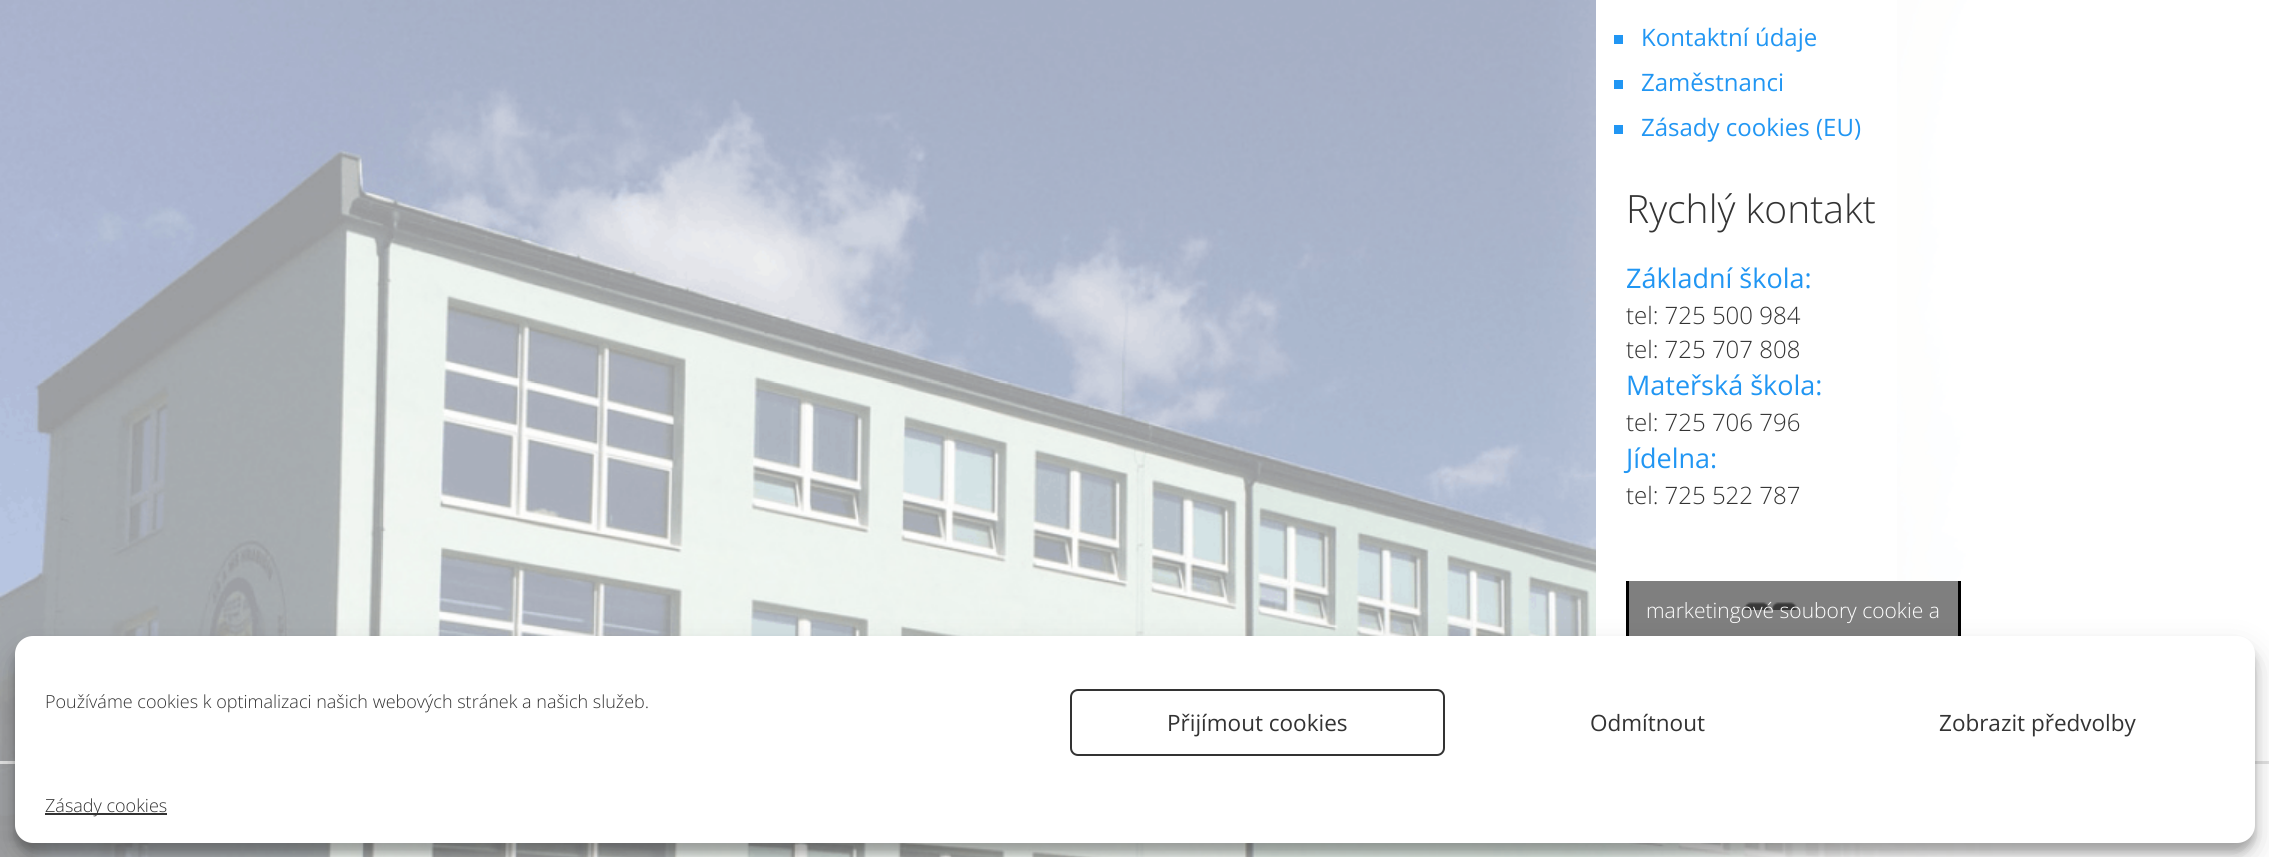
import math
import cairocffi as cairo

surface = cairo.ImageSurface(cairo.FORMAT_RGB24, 2269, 857)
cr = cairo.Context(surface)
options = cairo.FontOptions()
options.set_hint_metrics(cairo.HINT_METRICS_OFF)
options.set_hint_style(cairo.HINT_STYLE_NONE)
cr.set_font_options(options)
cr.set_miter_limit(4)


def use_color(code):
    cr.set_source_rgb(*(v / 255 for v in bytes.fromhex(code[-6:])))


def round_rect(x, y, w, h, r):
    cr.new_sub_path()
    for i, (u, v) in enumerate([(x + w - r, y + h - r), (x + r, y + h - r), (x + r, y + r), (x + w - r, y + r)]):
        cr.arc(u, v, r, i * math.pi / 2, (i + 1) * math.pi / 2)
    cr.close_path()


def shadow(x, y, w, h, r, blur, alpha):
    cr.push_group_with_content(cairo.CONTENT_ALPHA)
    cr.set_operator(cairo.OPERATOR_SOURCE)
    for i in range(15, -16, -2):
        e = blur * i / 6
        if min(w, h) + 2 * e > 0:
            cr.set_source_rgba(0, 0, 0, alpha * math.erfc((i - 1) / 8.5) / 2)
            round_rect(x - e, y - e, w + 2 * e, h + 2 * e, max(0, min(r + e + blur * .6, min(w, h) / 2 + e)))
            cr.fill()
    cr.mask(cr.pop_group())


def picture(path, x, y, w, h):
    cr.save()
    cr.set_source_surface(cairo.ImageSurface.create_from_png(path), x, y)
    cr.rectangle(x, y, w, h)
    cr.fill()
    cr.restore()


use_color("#ffffff")
cr.paint()
picture("img1.png", 0, 0, 2269, 857)
use_color("#ffffff")
cr.rectangle(1596, 0, 301, 636)
cr.fill()
use_color("#2196f3")
cr.rectangle(1614, 35, 9, 9)
cr.fill()
cr.select_font_face("Open Sans")
cr.set_font_size(24)
cr.move_to(1641, 46)
cr.show_text("Kontaktní údaje")
cr.rectangle(1614, 80, 9, 9)
cr.fill()
cr.move_to(1641, 91)
cr.show_text("Zaměstnanci")
cr.rectangle(1614, 125, 9, 9)
cr.fill()
cr.move_to(1641, 136)
cr.show_text("Zásady cookies (EU)")
cr.select_font_face("Open Sans Light")
cr.set_font_size(39)
use_color("#333333")
cr.move_to(1626, 223)
cr.show_text("Rychlý kontakt")
cr.select_font_face("Open Sans")
cr.set_font_size(27)
use_color("#2196f3")
cr.move_to(1626, 288)
cr.show_text("Základní škola:")
cr.select_font_face("Open Sans Light")
cr.set_font_size(24)
use_color("#333333")
cr.move_to(1626, 324)
cr.show_text("tel: 725 500 984")
cr.move_to(1626, 358)
cr.show_text("tel: 725 707 808")
cr.select_font_face("Open Sans")
cr.set_font_size(27)
use_color("#2196f3")
cr.move_to(1626, 395)
cr.show_text("Mateřská škola:")
cr.select_font_face("Open Sans Light")
cr.set_font_size(24)
use_color("#333333")
cr.move_to(1626, 431)
cr.show_text("tel: 725 706 796")
cr.select_font_face("Open Sans")
cr.set_font_size(27)
use_color("#2196f3")
cr.move_to(1626, 468)
cr.show_text("Jídelna:")
cr.select_font_face("Open Sans Light")
cr.set_font_size(24)
use_color("#333333")
cr.move_to(1626, 504)
cr.show_text("tel: 725 522 787")
use_color("#ffffff")
round_rect(1626, 581, 335, 60, 5)
cr.fill()
picture("img2.png", 1744, 602, 53, 8)
cr.set_source_rgba(0, 0, 0, 0.5)
cr.rectangle(1629, 581, 329, 55)
cr.fill()
cr.save()
cr.rectangle(1626, 581, 335, 82)
cr.clip()
cr.rectangle(1627.5, 543.5, 332, 136)
use_color("#000000")
cr.set_line_width(3)
cr.stroke()
cr.restore()
cr.set_font_size(21)
use_color("#ffffff")
cr.move_to(1646, 618)
cr.show_text("marketingové soubory cookie a")
use_color("#e1e1e1")
cr.rectangle(0, 761, 2269, 3)
cr.fill()
use_color("#000000")
shadow(15, 645, 2240, 207, 18, 4.5, 0.23)
shadow(15, 651, 2240, 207, 18, 15, 0.19)
use_color("#ffffff")
round_rect(15, 636, 2240, 207, 18)
cr.fill()
cr.set_font_size(18)
use_color("#333333")
cr.move_to(45, 708)
cr.show_text("Používáme cookies k optimalizaci našich webových stránek a našich služeb.")
round_rect(1071, 690, 373, 65, 7)
cr.stroke()
cr.select_font_face("Open Sans")
cr.set_font_size(22.5)
cr.move_to(1167, 731)
cr.show_text("Přijímout cookies")
cr.move_to(1590, 731)
cr.show_text("Odmítnout")
cr.move_to(1939, 731)
cr.show_text("Zobrazit předvolby")
cr.rectangle(45, 813, 122, 2)
cr.fill()
cr.select_font_face("Open Sans Light")
cr.set_font_size(18)
cr.move_to(45, 812)
cr.show_text("Zásady cookies")
surface.write_to_png("result.png")
